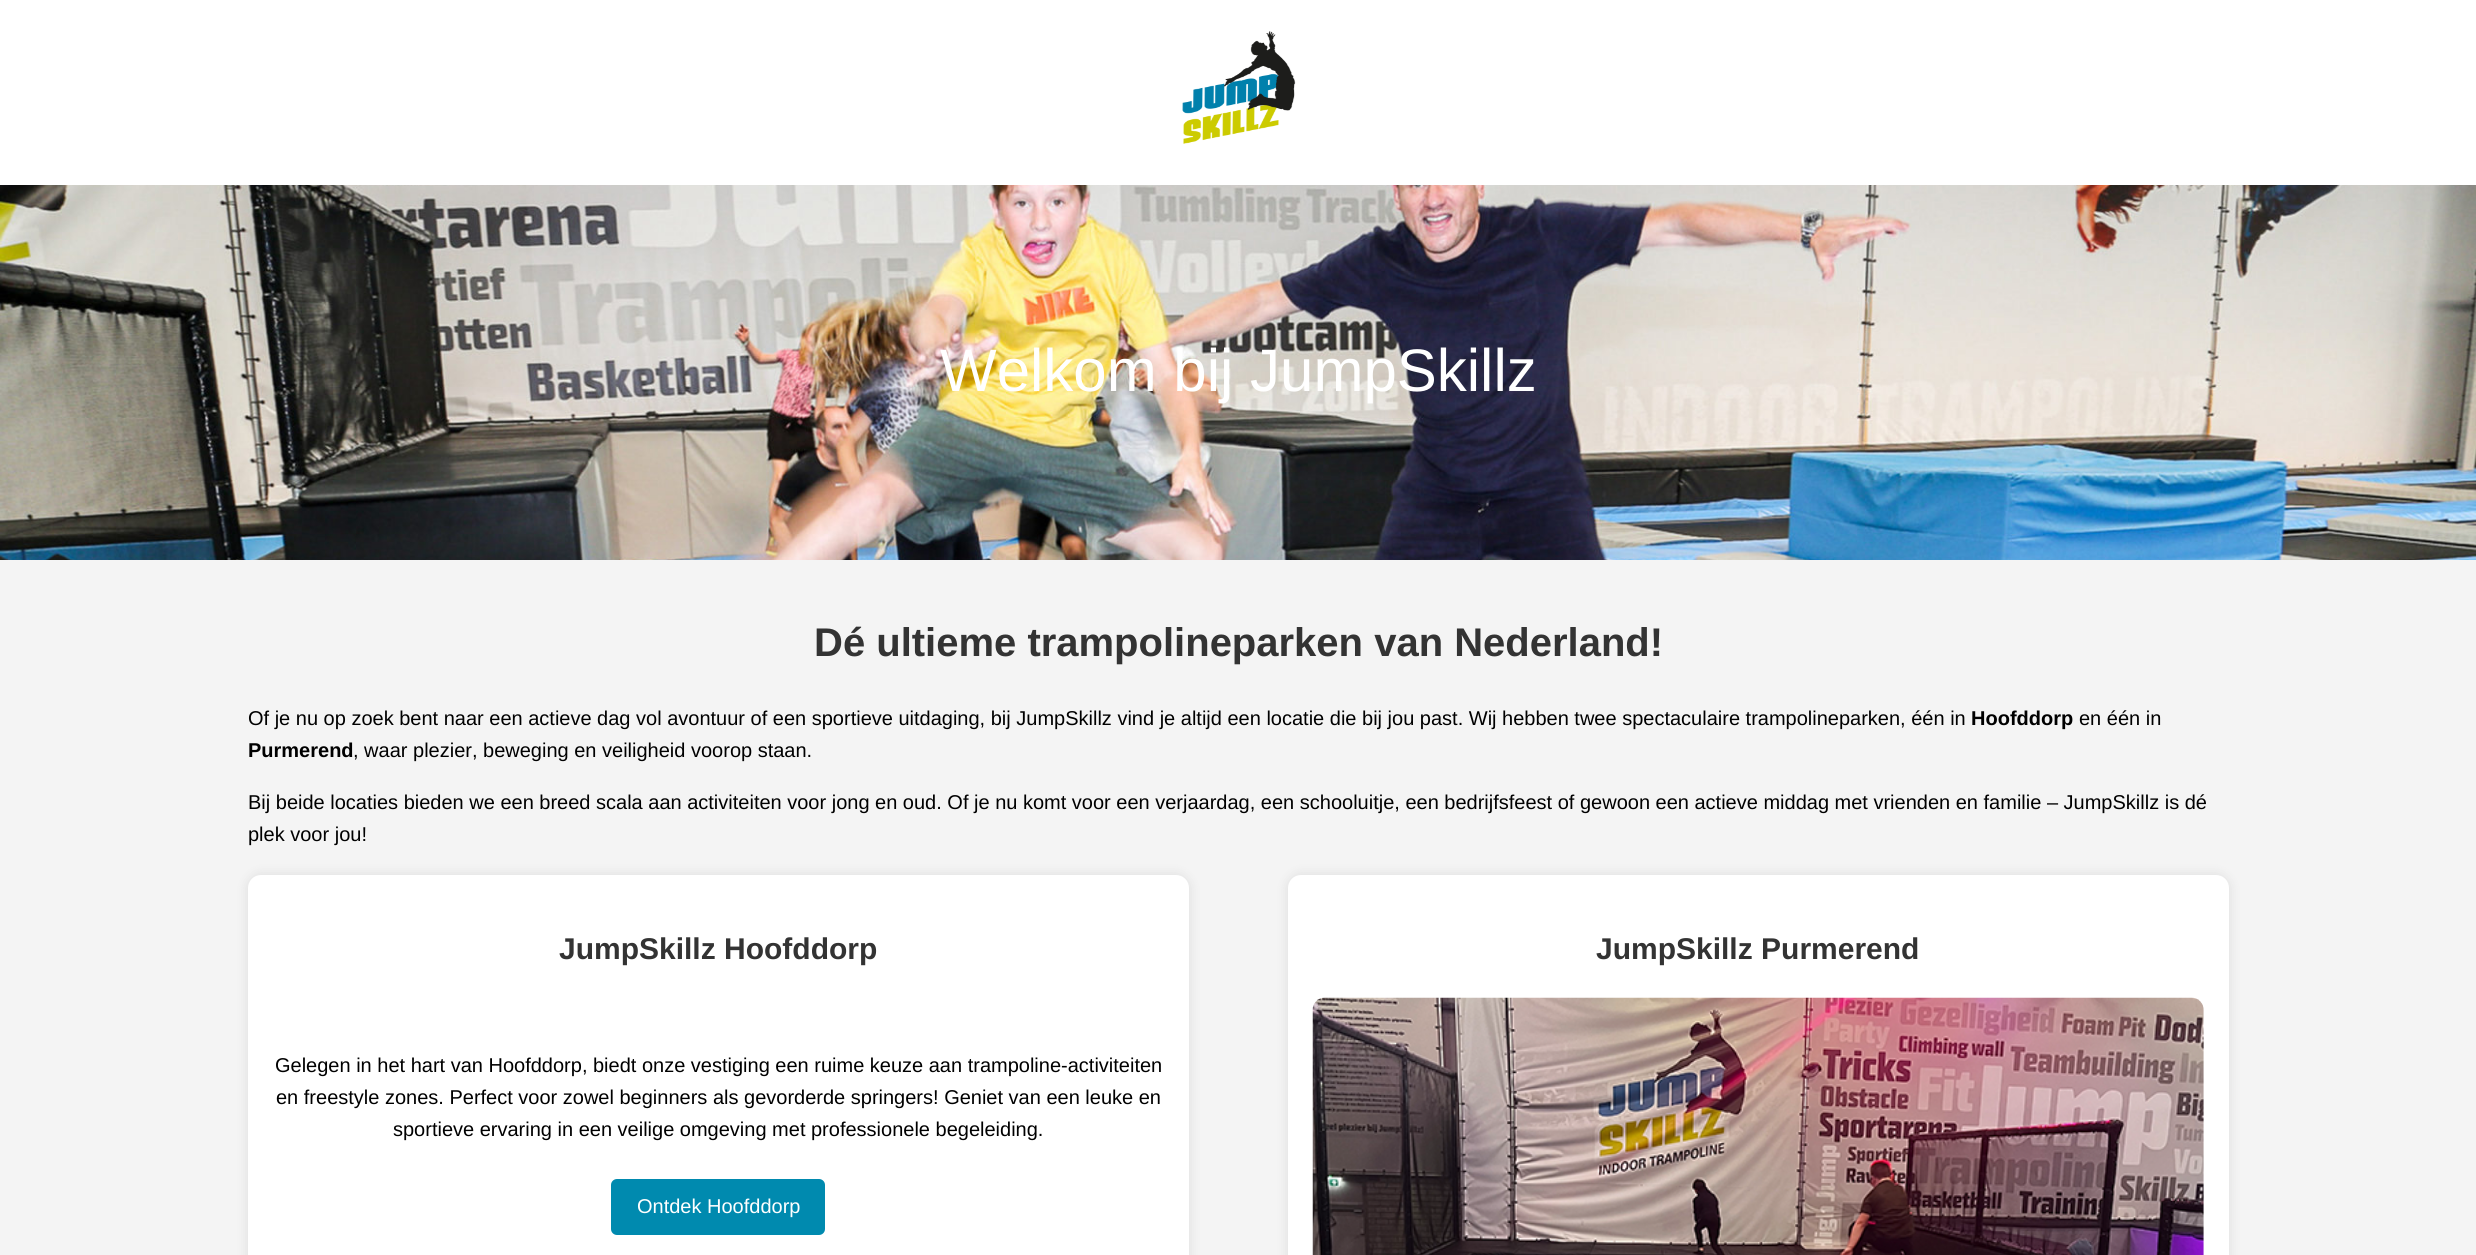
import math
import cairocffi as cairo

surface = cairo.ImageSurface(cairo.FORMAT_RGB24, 2476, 1255)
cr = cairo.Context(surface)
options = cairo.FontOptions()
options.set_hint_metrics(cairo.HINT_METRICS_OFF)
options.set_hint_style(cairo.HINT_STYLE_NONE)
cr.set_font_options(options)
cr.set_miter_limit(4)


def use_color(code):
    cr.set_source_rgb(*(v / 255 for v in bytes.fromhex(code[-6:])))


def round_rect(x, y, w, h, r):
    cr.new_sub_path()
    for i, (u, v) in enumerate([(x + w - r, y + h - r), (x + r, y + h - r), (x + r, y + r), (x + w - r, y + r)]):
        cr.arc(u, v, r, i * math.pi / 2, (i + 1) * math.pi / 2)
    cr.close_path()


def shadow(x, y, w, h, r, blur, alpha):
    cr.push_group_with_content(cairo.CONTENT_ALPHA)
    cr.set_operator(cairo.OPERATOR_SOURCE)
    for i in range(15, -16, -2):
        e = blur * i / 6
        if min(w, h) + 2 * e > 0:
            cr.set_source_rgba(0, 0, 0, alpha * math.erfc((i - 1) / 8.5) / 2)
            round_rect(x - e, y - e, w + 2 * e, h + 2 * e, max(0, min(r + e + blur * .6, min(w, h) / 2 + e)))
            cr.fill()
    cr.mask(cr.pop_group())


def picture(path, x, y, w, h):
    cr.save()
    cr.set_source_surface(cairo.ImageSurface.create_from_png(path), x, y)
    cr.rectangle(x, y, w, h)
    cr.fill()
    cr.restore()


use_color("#f4f4f4")
cr.paint()
use_color("#ffffff")
cr.rectangle(0, 0, 2476, 185)
cr.fill()
picture("img1.png", 1182, 31, 114, 113)
picture("img2.png", 0, 185, 2476, 375)
cr.select_font_face("Liberation Sans")
cr.set_font_size(60)
cr.move_to(940, 391)
cr.show_text("Welkom bij JumpSkillz")
cr.select_font_face("Liberation Sans", cairo.FONT_SLANT_NORMAL, cairo.FONT_WEIGHT_BOLD)
cr.set_font_size(40)
use_color("#333333")
cr.move_to(814, 656)
cr.show_text("Dé ultieme trampolineparken van Nederland!")
cr.select_font_face("Liberation Sans")
cr.set_font_size(20)
use_color("#000000")
cr.move_to(248, 725)
cr.show_text("Of je nu op zoek bent naar een actieve dag vol avontuur of een sportieve uitdaging, bij JumpSkillz vind je altijd een locatie die bij jou past. Wij hebben twee spectaculaire trampolineparken, één in")
cr.select_font_face("Liberation Sans", cairo.FONT_SLANT_NORMAL, cairo.FONT_WEIGHT_BOLD)
cr.move_to(1971, 725)
cr.show_text("Hoofddorp")
cr.select_font_face("Liberation Sans")
cr.move_to(2079, 725)
cr.show_text("en één in")
cr.select_font_face("Liberation Sans", cairo.FONT_SLANT_NORMAL, cairo.FONT_WEIGHT_BOLD)
cr.move_to(248, 757)
cr.show_text("Purmerend")
cr.select_font_face("Liberation Sans")
cr.move_to(353, 757)
cr.show_text(", waar plezier, beweging en veiligheid voorop staan.")
cr.move_to(248, 809)
cr.show_text("Bij beide locaties bieden we een breed scala aan activiteiten voor jong en oud. Of je nu komt voor een verjaardag, een schooluitje, een bedrijfsfeest of gewoon een actieve middag met vrienden en familie – JumpSkillz is dé")
cr.move_to(248, 841)
cr.show_text("plek voor jou!")
use_color("#000000")
shadow(248, 875, 941, 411, 13, 6, 0.1)
use_color("#ffffff")
round_rect(248, 875, 941, 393, 13)
cr.fill()
cr.select_font_face("Liberation Sans", cairo.FONT_SLANT_NORMAL, cairo.FONT_WEIGHT_BOLD)
cr.set_font_size(30)
use_color("#333333")
cr.move_to(559, 959)
cr.show_text("JumpSkillz Hoofddorp")
cr.select_font_face("Liberation Sans")
cr.set_font_size(20)
use_color("#000000")
cr.move_to(275, 1072)
cr.show_text("Gelegen in het hart van Hoofddorp, biedt onze vestiging een ruime keuze aan trampoline-activiteiten")
cr.move_to(276, 1104)
cr.show_text("en freestyle zones. Perfect voor zowel beginners als gevorderde springers! Geniet van een leuke en")
cr.move_to(393, 1136)
cr.show_text("sportieve ervaring in een veilige omgeving met professionele begeleiding.")
use_color("#008aaf")
round_rect(611, 1179, 214, 56, 6)
cr.fill()
use_color("#ffffff")
cr.move_to(637, 1213)
cr.show_text("Ontdek Hoofddorp")
use_color("#000000")
shadow(1288, 875, 941, 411, 13, 6, 0.1)
use_color("#ffffff")
round_rect(1288, 875, 941, 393, 13)
cr.fill()
cr.select_font_face("Liberation Sans", cairo.FONT_SLANT_NORMAL, cairo.FONT_WEIGHT_BOLD)
cr.set_font_size(30)
use_color("#333333")
cr.move_to(1596, 959)
cr.show_text("JumpSkillz Purmerend")
picture("img3.png", 1312, 997, 892, 258)
surface.write_to_png("result.png")
